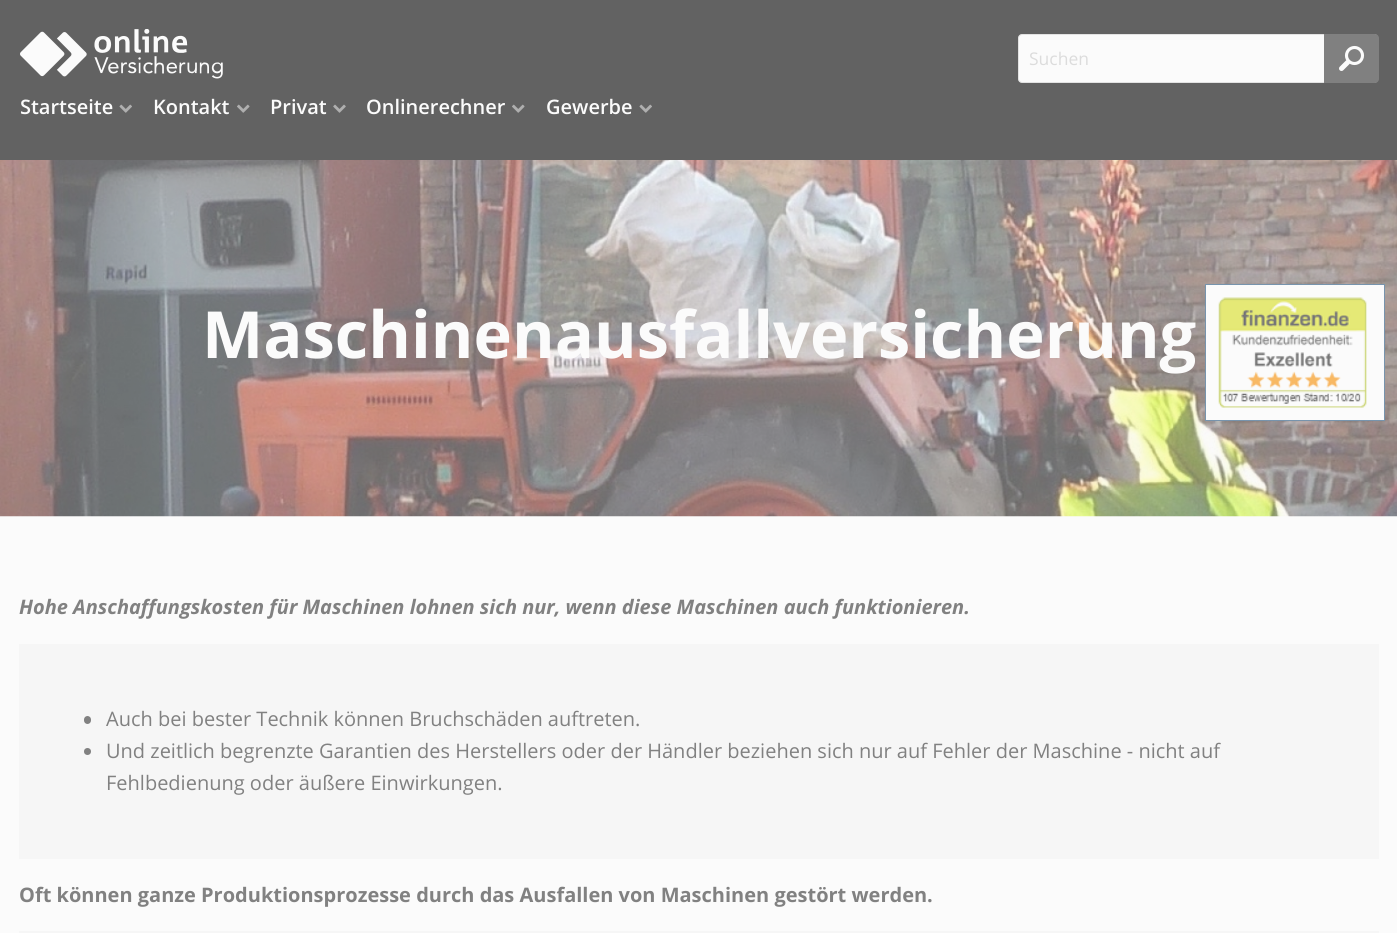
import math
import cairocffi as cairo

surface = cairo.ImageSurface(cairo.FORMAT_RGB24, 1397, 933)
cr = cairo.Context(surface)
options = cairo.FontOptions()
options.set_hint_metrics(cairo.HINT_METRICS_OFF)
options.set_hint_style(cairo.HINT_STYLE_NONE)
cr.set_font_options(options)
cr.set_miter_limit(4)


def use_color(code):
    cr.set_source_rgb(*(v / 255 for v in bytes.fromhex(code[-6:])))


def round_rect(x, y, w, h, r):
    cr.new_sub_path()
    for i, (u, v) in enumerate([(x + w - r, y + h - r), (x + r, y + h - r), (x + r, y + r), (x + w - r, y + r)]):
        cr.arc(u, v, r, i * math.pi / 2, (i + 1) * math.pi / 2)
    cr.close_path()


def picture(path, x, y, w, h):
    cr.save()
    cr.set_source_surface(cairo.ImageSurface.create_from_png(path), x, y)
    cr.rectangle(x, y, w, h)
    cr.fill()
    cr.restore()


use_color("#fbfbfb")
cr.paint()
use_color("#626262")
cr.rectangle(0, 0, 1397, 160)
cr.fill()
picture("img1.png", 20, 29, 203, 50)
use_color("#fbfbfb")
round_rect(1018.5, 34.5, 359, 48, 3.5)
cr.fill_preserve()
use_color("#e2e2e2")
cr.set_line_width(1)
cr.stroke()
cr.select_font_face("Open Sans")
cr.set_font_size(17.5)
use_color("#dcdcdc")
cr.move_to(1029, 65)
cr.show_text("Suchen")
use_color("#808080")
cr.new_path()
cr.move_to(1324, 34)
cr.line_to(1375, 34)
cr.curve_to(1377, 34, 1379, 36, 1379, 38)
cr.line_to(1379, 79)
cr.curve_to(1379, 81, 1377, 83, 1375, 83)
cr.line_to(1324, 83)
cr.close_path()
cr.fill()
cr.new_path()
cr.move_to(1347.5, 62.5)
cr.line_to(1341.5, 68.5)
use_color("#fbfbfb")
cr.set_line_width(5)
cr.set_line_cap(cairo.LINE_CAP_ROUND)
cr.stroke()
cr.arc(1354.5, 55.5, 8, 0, 2 * math.pi)
cr.set_line_width(3.1)
cr.set_line_cap(cairo.LINE_CAP_BUTT)
cr.stroke()
cr.select_font_face("Open Sans SemiBold")
cr.set_font_size(20)
cr.move_to(20, 114)
cr.show_text("Startseite")
picture("img2.png", 119, 104, 13, 9)
cr.move_to(153, 114)
cr.show_text("Kontakt")
picture("img3.png", 237, 104, 13, 9)
cr.move_to(270, 114)
cr.show_text("Privat")
picture("img4.png", 333, 104, 13, 9)
cr.move_to(366, 114)
cr.show_text("Onlinerechner")
picture("img3.png", 512, 104, 13, 9)
cr.move_to(546, 114)
cr.show_text("Gewerbe")
picture("img2.png", 639, 104, 13, 9)
picture("img5.png", 0, 160, 1397, 357)
cr.select_font_face("Open Sans", cairo.FONT_SLANT_NORMAL, cairo.FONT_WEIGHT_BOLD)
cr.set_font_size(65)
cr.move_to(202, 358)
cr.show_text("Maschinenausfallversicherung")
cr.select_font_face("Open Sans", cairo.FONT_SLANT_ITALIC, cairo.FONT_WEIGHT_BOLD)
cr.set_font_size(20)
use_color("#818181")
cr.move_to(19, 614)
cr.show_text("Hohe Anschaffungskosten für Maschinen lohnen sich nur, wenn diese Maschinen auch funktionieren.")
use_color("#f6f6f6")
cr.rectangle(19, 644, 1360, 215)
cr.fill()
use_color("#818181")
round_rect(84, 716, 7, 8, 3.5)
cr.fill()
cr.select_font_face("Open Sans")
cr.move_to(106, 726)
cr.show_text("Auch bei bester Technik können Bruchschäden auftreten.")
cr.new_path()
cr.arc(87.5, 751.5, 3.5, 0, 2 * math.pi)
cr.fill()
cr.move_to(106, 758)
cr.show_text("Und zeitlich begrenzte Garantien des Herstellers oder der Händler beziehen sich nur auf Fehler der Maschine - nicht auf")
cr.move_to(106, 790)
cr.show_text("Fehlbedienung oder äußere Einwirkungen.")
cr.select_font_face("Open Sans", cairo.FONT_SLANT_NORMAL, cairo.FONT_WEIGHT_BOLD)
cr.move_to(19, 902)
cr.show_text("Oft können ganze Produktionsprozesse durch das Ausfallen von Maschinen gestört werden.")
use_color("#f6f6f6")
cr.rectangle(19, 931, 1360, 2)
cr.fill()
use_color("#fbfbfb")
cr.rectangle(1205.5, 284.5, 179, 136)
cr.fill_preserve()
use_color("#7794ad")
cr.set_line_width(1)
cr.stroke()
picture("img6.png", 1218, 297, 149, 111)
surface.write_to_png("result.png")
